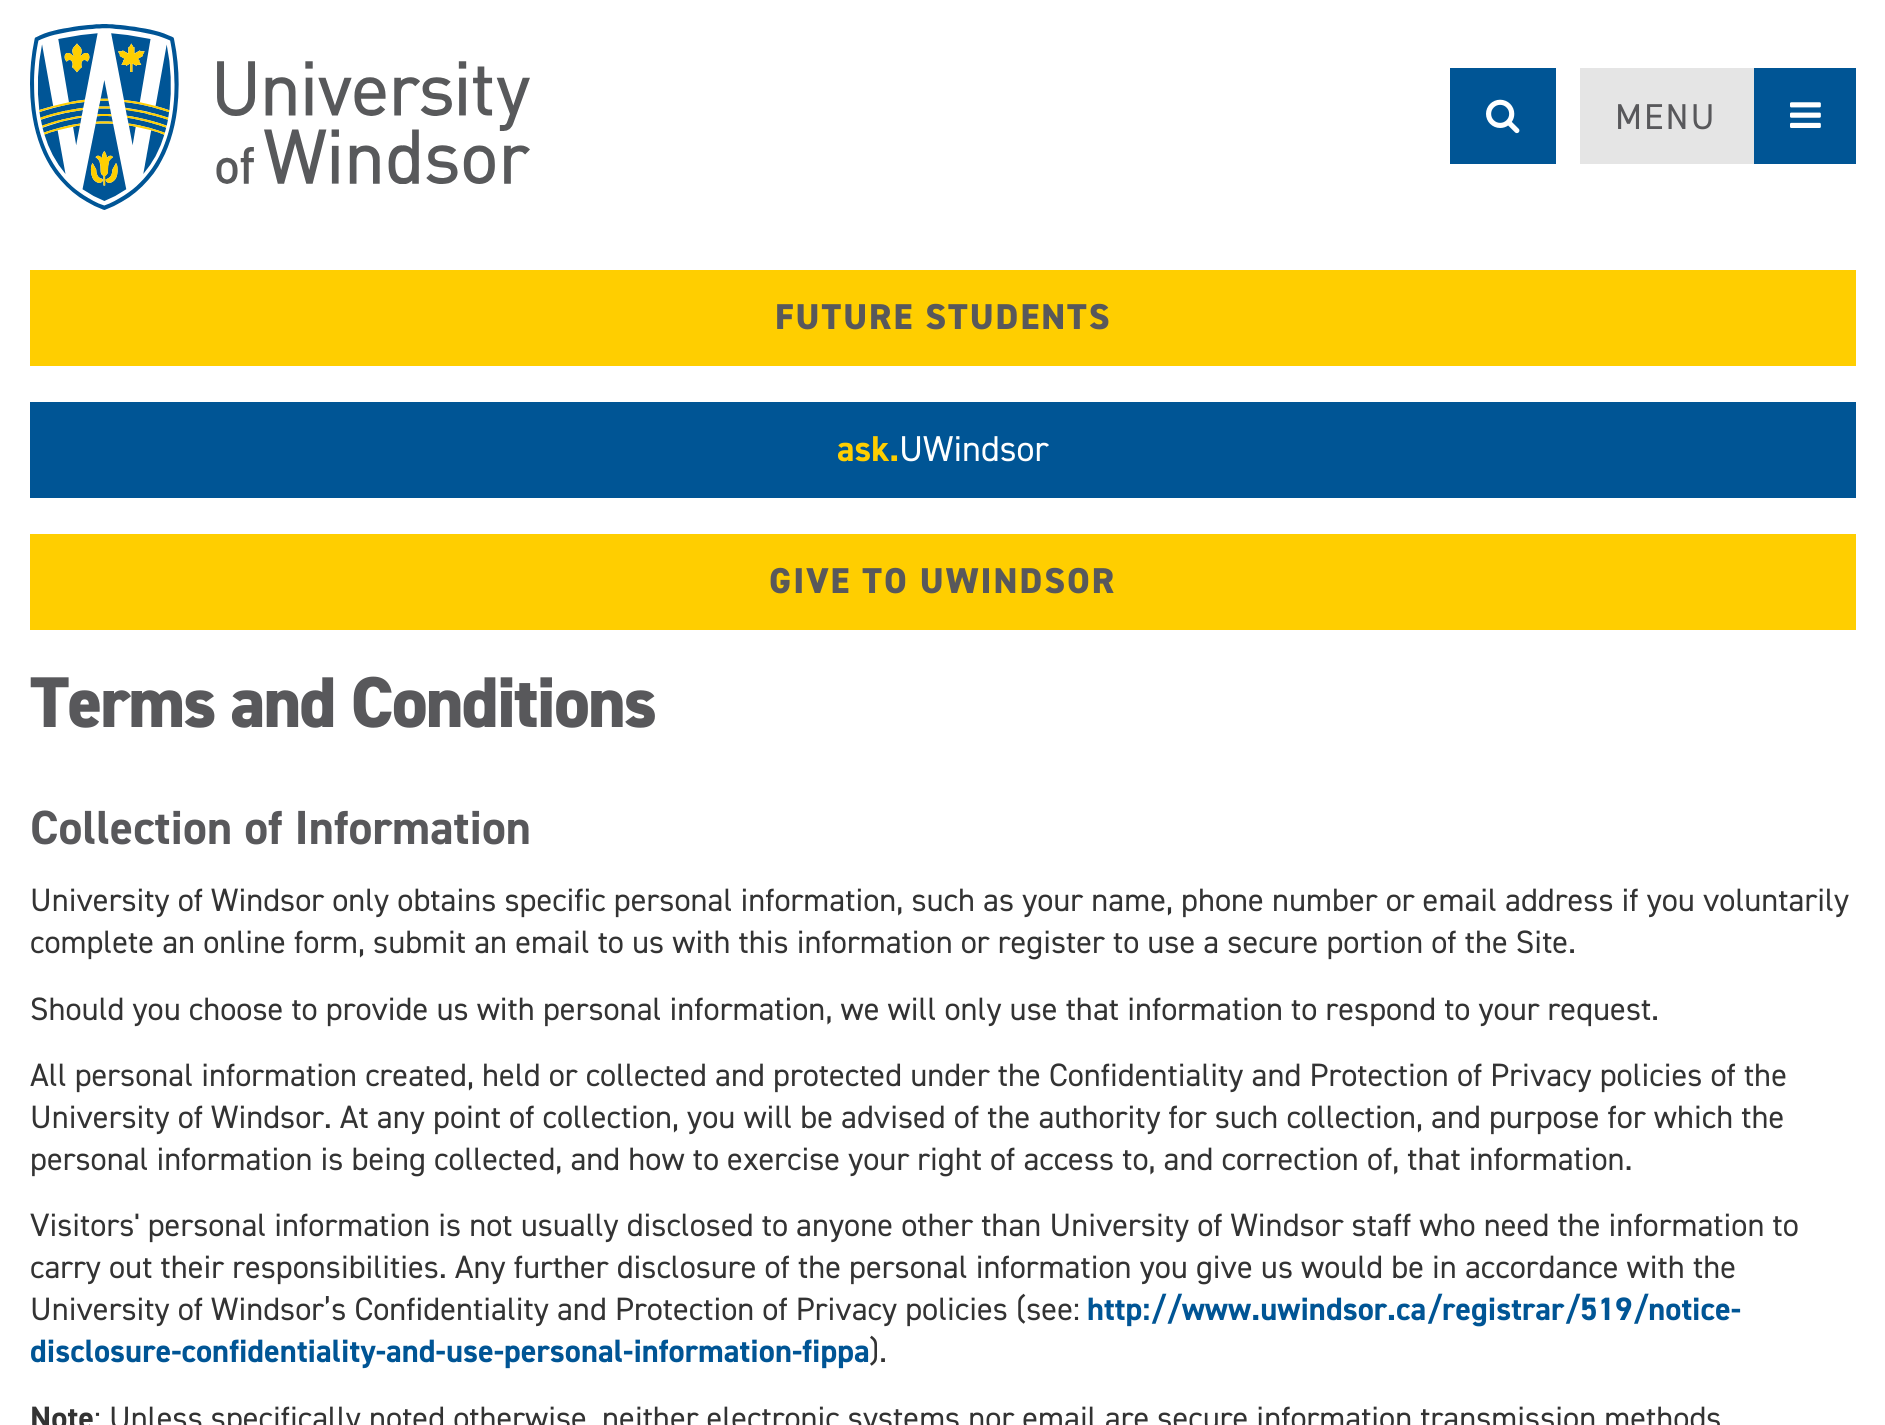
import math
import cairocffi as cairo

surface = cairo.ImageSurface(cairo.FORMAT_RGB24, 1885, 1425)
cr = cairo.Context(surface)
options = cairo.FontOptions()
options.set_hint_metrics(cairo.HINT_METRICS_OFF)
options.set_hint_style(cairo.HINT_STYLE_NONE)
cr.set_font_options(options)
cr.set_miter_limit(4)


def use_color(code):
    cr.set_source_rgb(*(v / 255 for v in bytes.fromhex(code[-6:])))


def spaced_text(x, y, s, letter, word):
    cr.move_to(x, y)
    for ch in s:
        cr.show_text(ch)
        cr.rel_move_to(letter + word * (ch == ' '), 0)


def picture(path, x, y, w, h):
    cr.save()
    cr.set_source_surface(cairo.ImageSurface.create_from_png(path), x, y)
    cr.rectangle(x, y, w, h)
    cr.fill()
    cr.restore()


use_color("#ffffff")
cr.paint()
picture("img1.png", 30, 24, 500, 186)
use_color("#005595")
cr.rectangle(1450, 68, 106, 96)
cr.fill()
picture("img2.png", 1486, 99, 34, 35)
use_color("#e5e5e5")
cr.rectangle(1580, 68, 174, 96)
cr.fill()
cr.select_font_face("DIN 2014")
cr.set_font_size(36)
use_color("#58585b")
spaced_text(1615, 129, "MENU", 2, 0)
use_color("#005595")
cr.rectangle(1754, 68, 102, 96)
cr.fill()
picture("img3.png", 1790, 102, 31, 26)
use_color("#ffce00")
cr.rectangle(30, 270, 1826, 96)
cr.fill()
cr.select_font_face("DIN 2014 ExtraBold")
use_color("#58585b")
spaced_text(775, 329, "FUTURE STUDENTS", 2, 0)
use_color("#005595")
cr.rectangle(30, 402, 1826, 96)
cr.fill()
cr.select_font_face("DIN 2014", cairo.FONT_SLANT_NORMAL, cairo.FONT_WEIGHT_BOLD)
use_color("#ffce00")
cr.move_to(837, 461)
cr.show_text("ask.")
cr.select_font_face("DIN 2014")
use_color("#ffffff")
cr.move_to(899, 461)
cr.show_text("UWindsor")
use_color("#ffce00")
cr.rectangle(30, 534, 1826, 96)
cr.fill()
cr.select_font_face("DIN 2014 ExtraBold")
use_color("#58585b")
spaced_text(769, 593, "GIVE TO UWINDSOR", 2, 0)
cr.set_font_size(72)
spaced_text(30, 727, "Terms and Conditions", -2, 0)
cr.select_font_face("DIN 2014", cairo.FONT_SLANT_NORMAL, cairo.FONT_WEIGHT_BOLD)
cr.set_font_size(48)
cr.move_to(30, 844)
cr.show_text("Collection of Information")
cr.select_font_face("DIN 2014")
cr.set_font_size(32.4)
use_color("#333333")
cr.move_to(30, 911)
cr.show_text("University of Windsor only obtains specific personal information, such as your name, phone number or email address if you voluntarily")
cr.move_to(30, 953)
cr.show_text("complete an online form, submit an email to us with this information or register to use a secure portion of the Site.")
cr.move_to(30, 1020)
cr.show_text("Should you choose to provide us with personal information, we will only use that information to respond to your request.")
cr.move_to(30, 1086)
cr.show_text("All personal information created, held or collected and protected under the Confidentiality and Protection of Privacy policies of the")
cr.move_to(30, 1128)
cr.show_text("University of Windsor. At any point of collection, you will be advised of the authority for such collection, and purpose for which the")
cr.move_to(30, 1170)
cr.show_text("personal information is being collected, and how to exercise your right of access to, and correction of, that information.")
cr.move_to(30, 1236)
cr.show_text("Visitors' personal information is not usually disclosed to anyone other than University of Windsor staff who need the information to")
cr.move_to(30, 1278)
cr.show_text("carry out their responsibilities. Any further disclosure of the personal information you give us would be in accordance with the")
cr.move_to(30, 1320)
cr.show_text("University of Windsor’s Confidentiality and Protection of Privacy policies (see:")
cr.select_font_face("DIN 2014", cairo.FONT_SLANT_NORMAL, cairo.FONT_WEIGHT_BOLD)
use_color("#005595")
cr.move_to(1087, 1320)
cr.show_text("http://www.uwindsor.ca/registrar/519/notice-")
cr.move_to(30, 1362)
cr.show_text("disclosure-confidentiality-and-use-personal-information-fippa")
cr.select_font_face("DIN 2014")
use_color("#333333")
cr.move_to(869, 1362)
cr.show_text(").")
cr.select_font_face("DIN 2014", cairo.FONT_SLANT_NORMAL, cairo.FONT_WEIGHT_BOLD)
cr.move_to(30, 1429)
cr.show_text("Note")
cr.select_font_face("DIN 2014")
cr.move_to(94, 1429)
cr.show_text(": Unless specifically noted otherwise, neither electronic systems nor email are secure information transmission methods")
surface.write_to_png("result.png")
